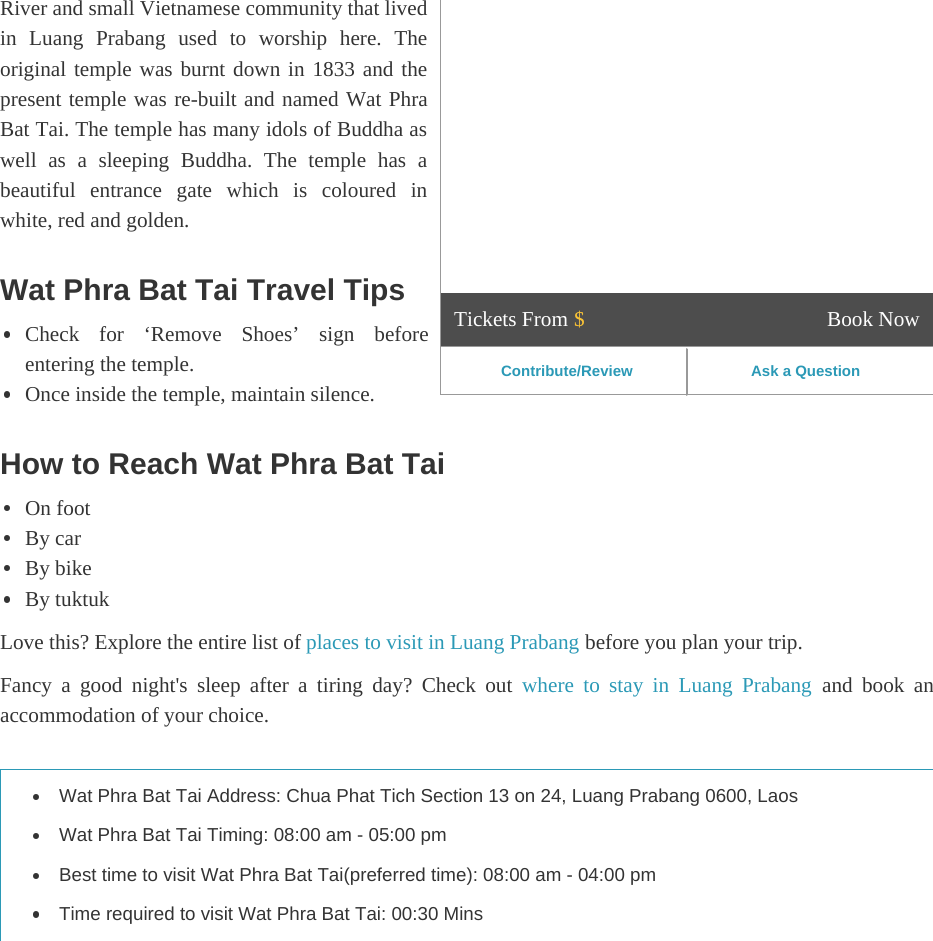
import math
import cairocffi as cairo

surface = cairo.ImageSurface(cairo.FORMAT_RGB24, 933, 941)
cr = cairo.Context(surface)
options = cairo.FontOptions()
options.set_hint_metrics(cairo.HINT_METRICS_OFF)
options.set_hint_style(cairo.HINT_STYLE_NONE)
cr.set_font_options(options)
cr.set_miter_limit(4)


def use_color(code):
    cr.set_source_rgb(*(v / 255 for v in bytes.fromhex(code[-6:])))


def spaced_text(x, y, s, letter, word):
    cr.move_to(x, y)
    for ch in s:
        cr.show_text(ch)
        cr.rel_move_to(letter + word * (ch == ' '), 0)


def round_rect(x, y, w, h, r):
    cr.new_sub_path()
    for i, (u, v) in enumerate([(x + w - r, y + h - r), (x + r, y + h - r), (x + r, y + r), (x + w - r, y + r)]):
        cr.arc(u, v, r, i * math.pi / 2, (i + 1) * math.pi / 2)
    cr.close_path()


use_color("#ffffff")
cr.paint()
cr.select_font_face("Liberation Serif")
cr.set_font_size(21.25)
use_color("#333333")
cr.move_to(0, 15)
cr.show_text("River and small Vietnamese community that lived")
spaced_text(0, 45, "in Luang Prabang used to worship here. The", 0, 7.25)
spaced_text(0, 76, "original temple was burnt down in 1833 and the", 0, 2.5)
spaced_text(0, 106, "present temple was re-built and named Wat Phra", 0, 2)
spaced_text(0, 136, "Bat Tai. The temple has many idols of Buddha as", 0, 0.75)
spaced_text(0, 167, "well as a sleeping Buddha. The temple has a", 0, 6.25)
spaced_text(0, 197, "beautiful entrance gate which is coloured in", 0, 9.25)
cr.move_to(0, 227)
cr.show_text("white, red and golden.")
cr.select_font_face("Liberation Sans", cairo.FONT_SLANT_NORMAL, cairo.FONT_WEIGHT_BOLD)
cr.set_font_size(30)
cr.move_to(0, 300)
cr.show_text("Wat Phra Bat Tai Travel Tips")
round_rect(4, 331, 6, 7, 3)
cr.fill()
cr.select_font_face("Liberation Serif")
cr.set_font_size(21.25)
spaced_text(25, 341, "Check for ‘Remove Shoes’ sign before", 0, 14.5)
cr.move_to(25, 371)
cr.show_text("entering the temple.")
round_rect(4, 391, 6, 7, 3)
cr.fill()
cr.move_to(25, 401)
cr.show_text("Once inside the temple, maintain silence.")
cr.select_font_face("Liberation Sans", cairo.FONT_SLANT_NORMAL, cairo.FONT_WEIGHT_BOLD)
cr.set_font_size(30)
cr.move_to(0, 474)
cr.show_text("How to Reach Wat Phra Bat Tai")
cr.new_path()
cr.arc(7, 508, 3, 0, 2 * math.pi)
cr.fill()
cr.select_font_face("Liberation Serif")
cr.set_font_size(21.25)
cr.move_to(25, 515)
cr.show_text("On foot")
cr.new_path()
cr.arc(7, 538, 3, 0, 2 * math.pi)
cr.fill()
cr.move_to(25, 545)
cr.show_text("By car")
cr.new_path()
cr.arc(7, 568, 3, 0, 2 * math.pi)
cr.fill()
cr.move_to(25, 575)
cr.show_text("By bike")
round_rect(4, 596, 6, 7, 3)
cr.fill()
cr.move_to(25, 606)
cr.show_text("By tuktuk")
cr.move_to(0, 649)
cr.show_text("Love this? Explore the entire list of")
use_color("#2b99b6")
cr.move_to(306, 649)
cr.show_text("places to visit in Luang Prabang")
use_color("#333333")
cr.move_to(585, 649)
cr.show_text("before you plan your trip.")
spaced_text(0, 692, "Fancy a good night's sleep after a tiring day? Check out", 0, 4)
use_color("#2b99b6")
spaced_text(522, 692, "where to stay in Luang Prabang", 0, 4)
use_color("#333333")
spaced_text(822, 692, "and book an", 0, 4)
cr.move_to(0, 722)
cr.show_text("accommodation of your choice.")
cr.rectangle(440.5, -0.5, 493, 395)
use_color("#999999")
cr.set_line_width(1)
cr.stroke()
use_color("#4d4d4d")
cr.rectangle(441, 293, 492, 53)
cr.fill()
use_color("#ffffff")
cr.move_to(454, 326)
cr.show_text("Tickets From")
use_color("#fac335")
cr.move_to(574, 326)
cr.show_text("$")
use_color("#ffffff")
cr.move_to(827, 326)
cr.show_text("Book Now")
use_color("#999999")
cr.rectangle(441, 346, 492, 1)
cr.fill()
cr.select_font_face("Liberation Sans", cairo.FONT_SLANT_NORMAL, cairo.FONT_WEIGHT_BOLD)
cr.set_font_size(15)
use_color("#2b99b6")
cr.move_to(501, 376)
cr.show_text("Contribute/Review")
use_color("#999999")
cr.new_path()
cr.move_to(686, 396)
cr.line_to(686, 348)
cr.line_to(688, 349)
cr.line_to(688, 395)
cr.close_path()
cr.fill()
use_color("#2b99b6")
cr.move_to(751, 376)
cr.show_text("Ask a Question")
cr.rectangle(0.5, 769.5, 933, 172)
cr.stroke()
use_color("#333333")
cr.arc(36, 797, 3, 0, 2 * math.pi)
cr.fill()
cr.select_font_face("Liberation Sans")
cr.set_font_size(18.75)
cr.move_to(59, 802)
cr.show_text("Wat Phra Bat Tai Address: Chua Phat Tich Section 13 on 24, Luang Prabang 0600, Laos")
cr.new_path()
cr.arc(36, 836, 3, 0, 2 * math.pi)
cr.fill()
cr.move_to(59, 841)
cr.show_text("Wat Phra Bat Tai Timing: 08:00 am - 05:00 pm")
cr.new_path()
cr.arc(36, 876, 3, 0, 2 * math.pi)
cr.fill()
cr.move_to(59, 881)
cr.show_text("Best time to visit Wat Phra Bat Tai(preferred time): 08:00 am - 04:00 pm")
round_rect(33, 911, 6, 7, 3)
cr.fill()
cr.move_to(59, 920)
cr.show_text("Time required to visit Wat Phra Bat Tai: 00:30 Mins")
surface.write_to_png("result.png")
